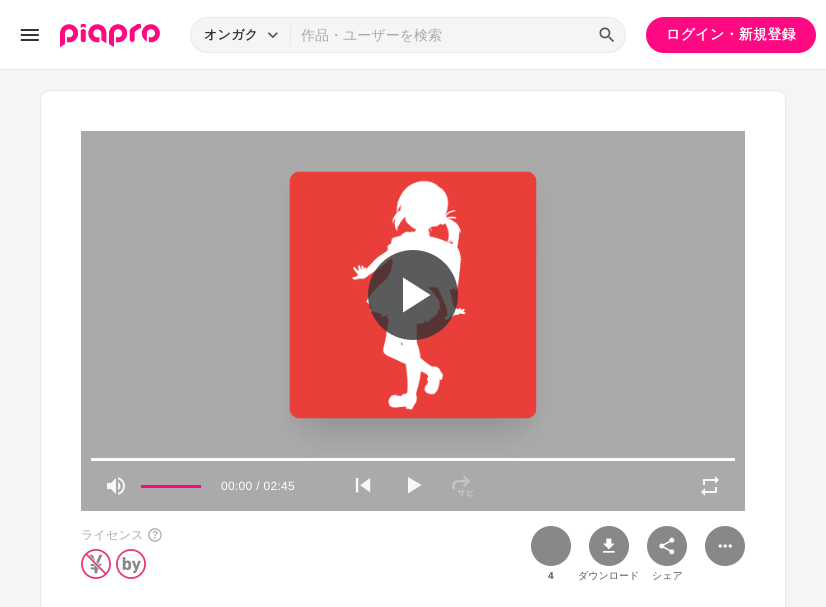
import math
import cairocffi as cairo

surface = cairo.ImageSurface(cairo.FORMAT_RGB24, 826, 607)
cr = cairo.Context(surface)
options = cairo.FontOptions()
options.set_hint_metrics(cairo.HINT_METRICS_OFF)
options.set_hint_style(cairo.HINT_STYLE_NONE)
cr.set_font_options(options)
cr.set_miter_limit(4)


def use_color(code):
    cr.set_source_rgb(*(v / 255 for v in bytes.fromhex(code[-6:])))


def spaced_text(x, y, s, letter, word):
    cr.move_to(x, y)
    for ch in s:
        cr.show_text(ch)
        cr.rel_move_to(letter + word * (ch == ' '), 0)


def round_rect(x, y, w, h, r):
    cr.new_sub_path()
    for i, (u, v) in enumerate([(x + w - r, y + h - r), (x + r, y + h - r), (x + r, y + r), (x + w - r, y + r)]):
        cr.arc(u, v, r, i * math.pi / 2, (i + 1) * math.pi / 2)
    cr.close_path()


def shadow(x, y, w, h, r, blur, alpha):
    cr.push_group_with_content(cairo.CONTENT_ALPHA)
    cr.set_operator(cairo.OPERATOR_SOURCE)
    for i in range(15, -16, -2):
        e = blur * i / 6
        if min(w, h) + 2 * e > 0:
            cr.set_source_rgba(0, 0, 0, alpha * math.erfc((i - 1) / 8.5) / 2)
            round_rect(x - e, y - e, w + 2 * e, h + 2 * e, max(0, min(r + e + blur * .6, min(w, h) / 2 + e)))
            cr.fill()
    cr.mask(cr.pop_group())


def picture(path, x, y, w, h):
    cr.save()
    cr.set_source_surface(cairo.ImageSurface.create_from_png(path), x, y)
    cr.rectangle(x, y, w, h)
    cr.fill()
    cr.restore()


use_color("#f5f5f5")
cr.paint()
use_color("#ffffff")
cr.rectangle(0, 0, 826, 69)
cr.fill()
use_color("#e8e8e8")
cr.rectangle(0, 69, 826, 1)
cr.fill()
picture("img1.png", 20, 29, 19, 12)
picture("img2.png", 60, 24, 100, 24)
use_color("#f5f5f5")
round_rect(190.5, 17.5, 435, 35, 17.5)
cr.fill_preserve()
use_color("#e8e8e8")
cr.set_line_width(1)
cr.stroke()
cr.select_font_face("WenQuanYi Zen Hei", cairo.FONT_SLANT_NORMAL, cairo.FONT_WEIGHT_BOLD)
cr.set_font_size(13)
use_color("#333333")
spaced_text(204, 39, "オンガク", 0.3, 0)
picture("img3.png", 267, 32, 11, 7)
use_color("#e8e8e8")
cr.rectangle(290, 25, 1, 20)
cr.fill()
cr.select_font_face("WenQuanYi Zen Hei Medium")
cr.set_font_size(14)
use_color("#aaaaaa")
cr.move_to(301, 40)
cr.show_text("作品・ユーザーを検索")
picture("img4.png", 599, 27, 15, 15)
use_color("#ff0982")
round_rect(646, 17, 170, 36, 18)
cr.fill()
cr.select_font_face("WenQuanYi Zen Hei", cairo.FONT_SLANT_NORMAL, cairo.FONT_WEIGHT_BOLD)
use_color("#ffffff")
spaced_text(666, 39, "ログイン・新規登録", 0.3, 0)
round_rect(40.5, 90.5, 745, 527, 9.5)
cr.fill_preserve()
use_color("#e8e8e8")
cr.stroke()
use_color("#aaaaaa")
cr.rectangle(81, 131, 664, 380)
cr.fill()
use_color("#000000")
shadow(320, 242, 187, 187, 0, 20, 0.1)
shadow(290, 182, 247, 247, 10, 10, 0.06)
use_color("#ffffff")
cr.rectangle(91, 458, 644, 3)
cr.fill()
picture("img5.png", 107, 477, 18, 18)
use_color("#ff0982")
cr.rectangle(141, 485, 60, 3)
cr.fill()
cr.select_font_face("Liberation Sans")
cr.set_font_size(12)
use_color("#ffffff")
spaced_text(221, 490, "00:00 / 02:45", 0.3, 0)
picture("img6.png", 355, 478, 16, 15)
use_color("#f7f7f7")
cr.new_path()
cr.move_to(408, 477)
cr.line_to(421.5, 485)
cr.line_to(408, 493.5)
cr.close_path()
cr.fill()
picture("img7.png", 452, 475, 22, 22)
picture("img8.png", 701, 476, 18, 20)
picture("img9.png", 289, 171, 248, 248)
cr.set_source_rgba(0.2, 0.2, 0.2, 0.8)
cr.arc(413, 295, 45, 0, 2 * math.pi)
cr.fill()
use_color("#ffffff")
cr.new_path()
cr.move_to(403, 277.5)
cr.line_to(430.5, 295)
cr.line_to(403, 312.5)
cr.close_path()
cr.fill()
cr.select_font_face("WenQuanYi Zen Hei Medium")
use_color("#aaaaaa")
spaced_text(81, 539, "ライセンス", 0.3, 0)
picture("img10.png", 148, 528, 14, 14)
picture("img11.png", 81, 549, 30, 30)
picture("img12.png", 116, 549, 30, 30)
use_color("#888888")
cr.arc(725, 546, 19, 0, 2 * math.pi)
cr.fill_preserve()
cr.set_line_width(2)
cr.stroke()
picture("img13.png", 718, 544, 14, 4)
cr.arc(551, 546, 19, 0, 2 * math.pi)
cr.fill_preserve()
cr.stroke()
cr.select_font_face("Liberation Sans", cairo.FONT_SLANT_NORMAL, cairo.FONT_WEIGHT_BOLD)
cr.set_font_size(10)
use_color("#555555")
cr.move_to(548, 579)
cr.show_text("4")
use_color("#888888")
cr.new_path()
cr.arc(609, 546, 19, 0, 2 * math.pi)
cr.fill_preserve()
cr.stroke()
picture("img14.png", 603, 538, 12, 15)
cr.select_font_face("WenQuanYi Zen Hei Medium")
use_color("#555555")
cr.move_to(578, 579)
cr.show_text("ダウンロード")
use_color("#888888")
cr.new_path()
cr.arc(667, 546, 19, 0, 2 * math.pi)
cr.fill_preserve()
cr.stroke()
picture("img15.png", 659, 537, 16, 18)
use_color("#555555")
cr.move_to(652, 579)
cr.show_text("シェア")
surface.write_to_png("result.png")
